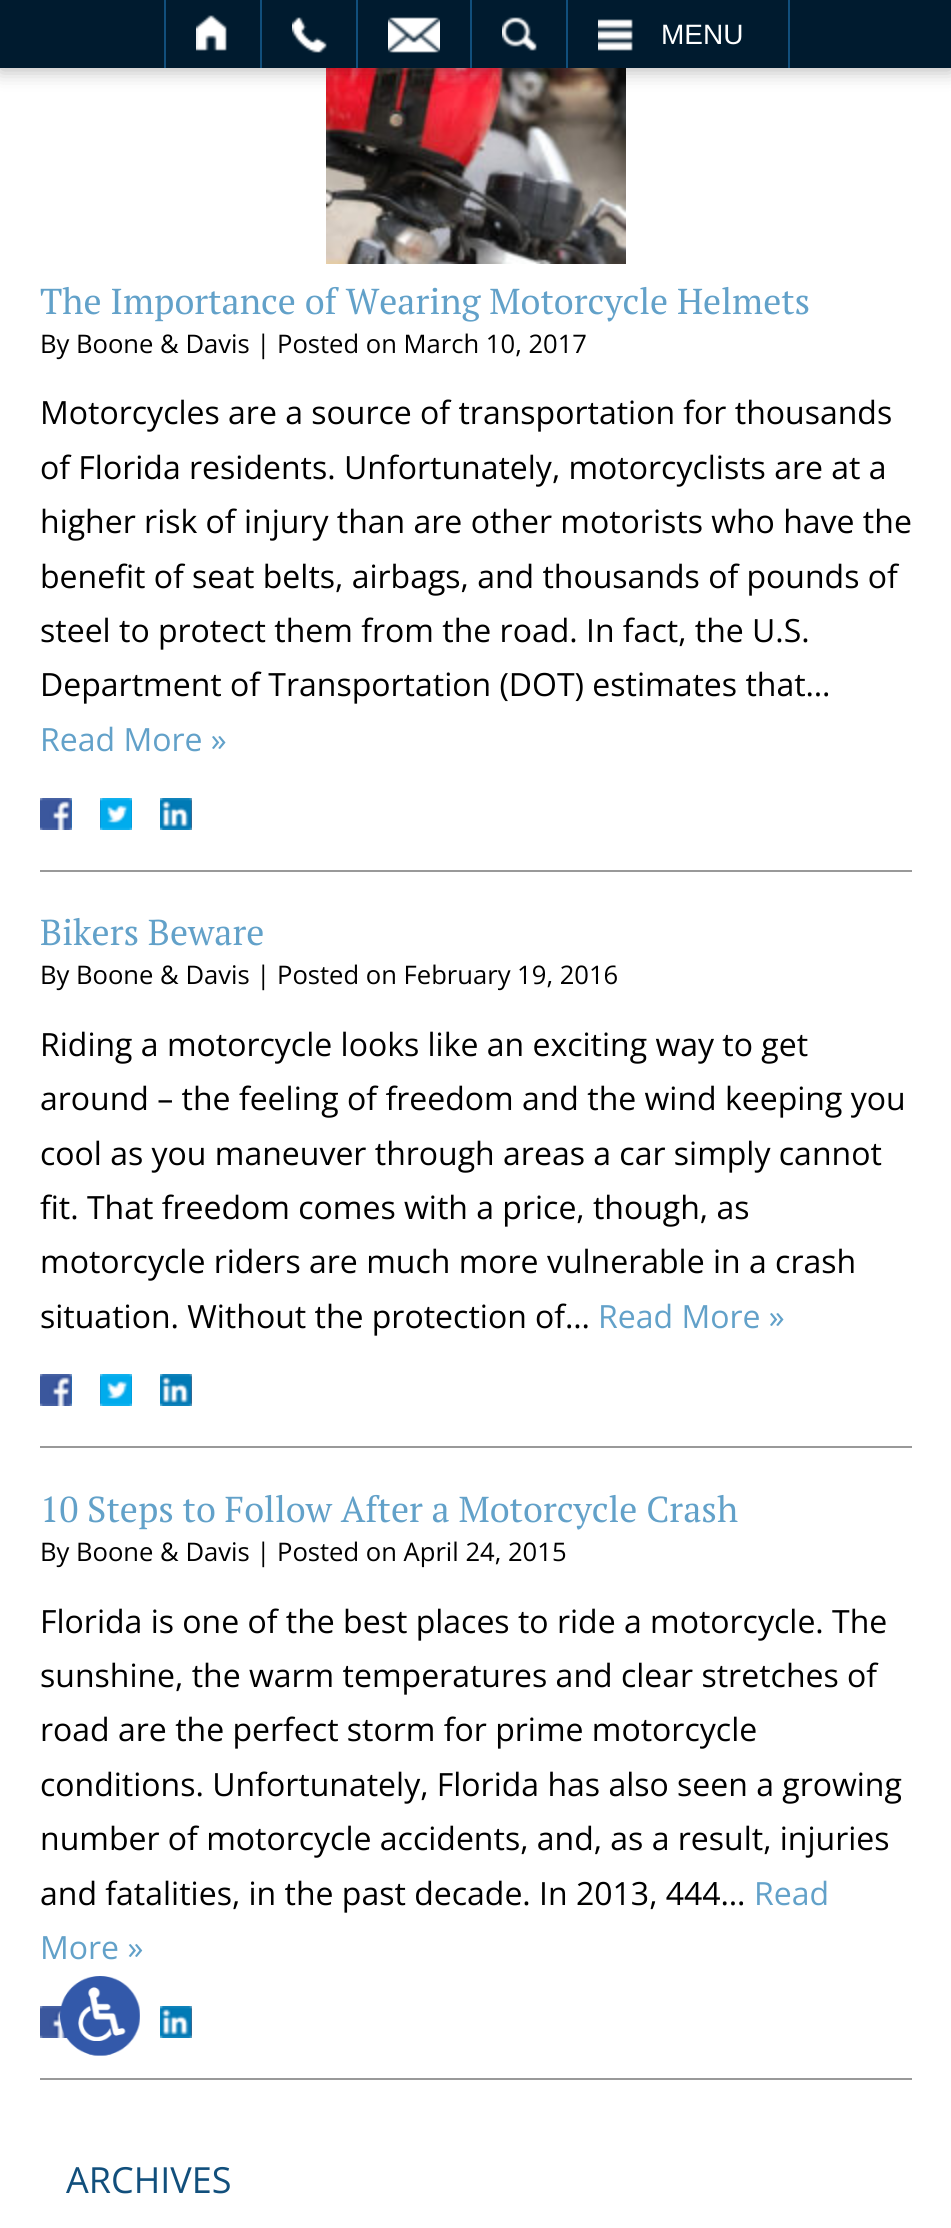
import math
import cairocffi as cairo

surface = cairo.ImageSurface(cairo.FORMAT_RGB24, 951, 2228)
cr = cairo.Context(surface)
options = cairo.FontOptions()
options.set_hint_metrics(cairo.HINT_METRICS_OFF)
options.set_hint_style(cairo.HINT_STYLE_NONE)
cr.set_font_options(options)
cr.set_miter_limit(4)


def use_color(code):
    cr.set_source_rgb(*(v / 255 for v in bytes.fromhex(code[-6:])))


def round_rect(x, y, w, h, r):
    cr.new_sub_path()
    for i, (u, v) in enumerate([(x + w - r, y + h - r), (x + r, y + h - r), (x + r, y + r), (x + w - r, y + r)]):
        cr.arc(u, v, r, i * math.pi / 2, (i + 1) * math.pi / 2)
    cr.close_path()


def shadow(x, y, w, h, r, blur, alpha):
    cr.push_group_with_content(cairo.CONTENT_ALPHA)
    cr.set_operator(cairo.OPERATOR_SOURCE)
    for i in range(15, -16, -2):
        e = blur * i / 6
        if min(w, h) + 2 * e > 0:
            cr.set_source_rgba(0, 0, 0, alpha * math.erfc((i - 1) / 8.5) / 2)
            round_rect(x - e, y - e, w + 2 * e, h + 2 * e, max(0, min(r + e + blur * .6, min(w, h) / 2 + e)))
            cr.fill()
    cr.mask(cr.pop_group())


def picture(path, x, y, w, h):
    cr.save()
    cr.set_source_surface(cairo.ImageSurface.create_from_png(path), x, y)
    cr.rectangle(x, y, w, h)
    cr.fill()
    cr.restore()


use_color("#ffffff")
cr.paint()
picture("img6.png", 326, 68, 300, 196)
use_color("#000000")
shadow(0, 2, 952, 68, 0, 10, 0.3)
use_color("#001b2f")
cr.rectangle(0, 0, 951, 68)
cr.fill()
use_color("#114f7c")
cr.rectangle(260, 0, 2, 68)
cr.fill()
cr.rectangle(164, 0, 2, 68)
cr.fill()
picture("img1.png", 196, 15, 31, 36)
cr.rectangle(356, 0, 2, 68)
cr.fill()
picture("img2.png", 292, 17, 35, 36)
cr.rectangle(470, 0, 2, 68)
cr.fill()
picture("img3.png", 388, 17, 52, 36)
cr.rectangle(566, 0, 2, 68)
cr.fill()
picture("img4.png", 502, 17, 35, 34)
cr.rectangle(788, 0, 2, 68)
cr.fill()
picture("img5.png", 598, 19, 35, 32)
cr.select_font_face("Liberation Sans")
cr.set_font_size(28)
use_color("#ffffff")
cr.move_to(661, 44)
cr.show_text("MENU")
use_color("#999999")
cr.rectangle(40, 870, 872, 2)
cr.fill()
cr.select_font_face("PT Serif")
cr.set_font_size(36)
use_color("#62a1c9")
cr.move_to(40, 314)
cr.show_text("The Importance of Wearing Motorcycle Helmets")
cr.select_font_face("Open Sans")
cr.set_font_size(25.6)
use_color("#000000")
cr.move_to(40, 353)
cr.show_text("By Boone & Davis | Posted on March 10, 2017")
cr.set_font_size(32)
cr.move_to(40, 424)
cr.show_text("Motorcycles are a source of transportation for thousands")
cr.move_to(40, 479)
cr.show_text("of Florida residents. Unfortunately, motorcyclists are at a")
cr.move_to(40, 533)
cr.show_text("higher risk of injury than are other motorists who have the")
cr.move_to(40, 588)
cr.show_text("benefit of seat belts, airbags, and thousands of pounds of")
cr.move_to(40, 642)
cr.show_text("steel to protect them from the road. In fact, the U.S.")
cr.move_to(40, 696)
cr.show_text("Department of Transportation (DOT) estimates that…")
use_color("#62a1c9")
cr.move_to(40, 751)
cr.show_text("Read More »")
picture("img7.png", 40, 798, 32, 32)
picture("img8.png", 100, 798, 32, 32)
picture("img9.png", 160, 798, 32, 32)
use_color("#999999")
cr.rectangle(40, 1446, 872, 2)
cr.fill()
cr.select_font_face("PT Serif")
cr.set_font_size(36)
use_color("#62a1c9")
cr.move_to(40, 945)
cr.show_text("Bikers Beware")
cr.select_font_face("Open Sans")
cr.set_font_size(25.6)
use_color("#000000")
cr.move_to(40, 984)
cr.show_text("By Boone & Davis | Posted on February 19, 2016")
cr.set_font_size(32)
cr.move_to(40, 1056)
cr.show_text("Riding a motorcycle looks like an exciting way to get")
cr.move_to(40, 1110)
cr.show_text("around – the feeling of freedom and the wind keeping you")
cr.move_to(40, 1165)
cr.show_text("cool as you maneuver through areas a car simply cannot")
cr.move_to(40, 1219)
cr.show_text("fit. That freedom comes with a price, though, as")
cr.move_to(40, 1273)
cr.show_text("motorcycle riders are much more vulnerable in a crash")
cr.move_to(40, 1328)
cr.show_text("situation. Without the protection of…")
use_color("#62a1c9")
cr.move_to(598, 1328)
cr.show_text("Read More »")
picture("img7.png", 40, 1374, 32, 32)
picture("img8.png", 100, 1374, 32, 32)
picture("img9.png", 160, 1374, 32, 32)
use_color("#999999")
cr.rectangle(40, 2078, 872, 2)
cr.fill()
cr.select_font_face("PT Serif")
cr.set_font_size(36)
use_color("#62a1c9")
cr.move_to(40, 1522)
cr.show_text("10 Steps to Follow After a Motorcycle Crash")
cr.select_font_face("Open Sans")
cr.set_font_size(25.6)
use_color("#000000")
cr.move_to(40, 1561)
cr.show_text("By Boone & Davis | Posted on April 24, 2015")
cr.set_font_size(32)
cr.move_to(40, 1633)
cr.show_text("Florida is one of the best places to ride a motorcycle. The")
cr.move_to(40, 1687)
cr.show_text("sunshine, the warm temperatures and clear stretches of")
cr.move_to(40, 1741)
cr.show_text("road are the perfect storm for prime motorcycle")
cr.move_to(40, 1796)
cr.show_text("conditions. Unfortunately, Florida has also seen a growing")
cr.move_to(40, 1850)
cr.show_text("number of motorcycle accidents, and, as a result, injuries")
cr.move_to(40, 1905)
cr.show_text("and fatalities, in the past decade. In 2013, 444…")
use_color("#62a1c9")
cr.move_to(754, 1905)
cr.show_text("Read")
cr.move_to(40, 1959)
cr.show_text("More »")
picture("img10.png", 40, 2006, 28, 32)
picture("img9.png", 160, 2006, 32, 32)
cr.set_font_size(36)
use_color("#114f7c")
cr.move_to(66, 2193)
cr.show_text("ARCHIVES")
picture("img11.png", 60, 1976, 80, 80)
surface.write_to_png("result.png")
